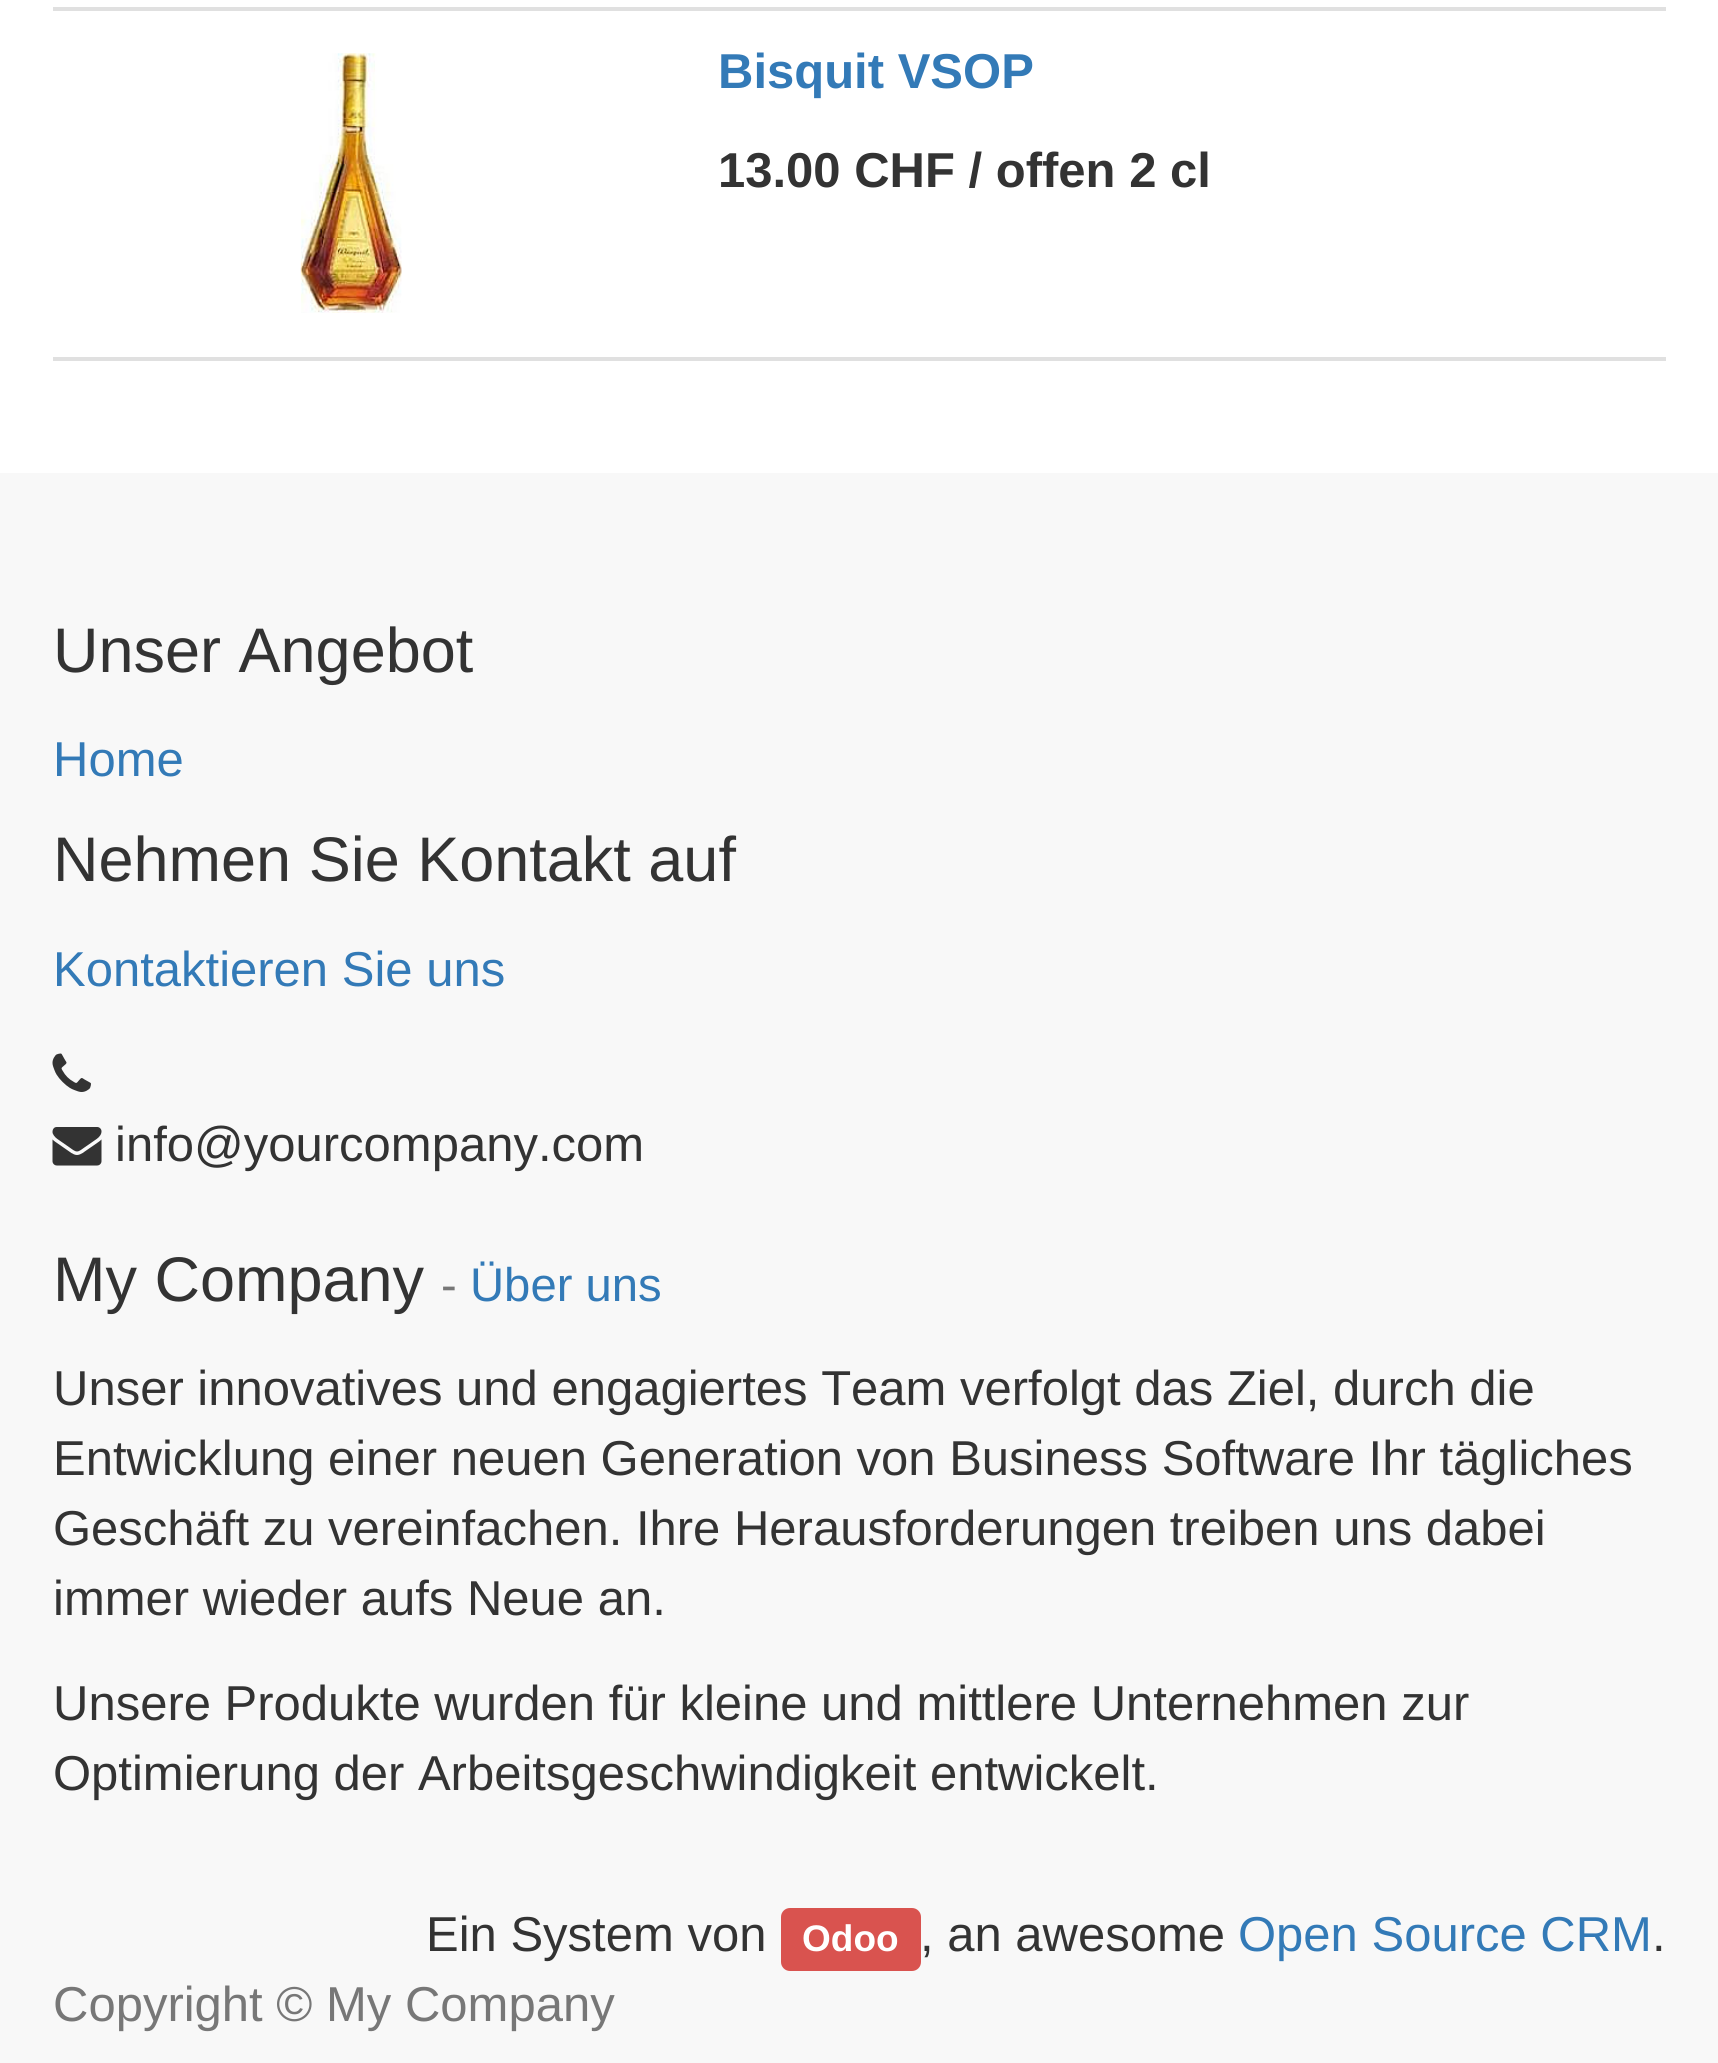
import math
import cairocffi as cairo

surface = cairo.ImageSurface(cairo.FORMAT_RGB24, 1718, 2063)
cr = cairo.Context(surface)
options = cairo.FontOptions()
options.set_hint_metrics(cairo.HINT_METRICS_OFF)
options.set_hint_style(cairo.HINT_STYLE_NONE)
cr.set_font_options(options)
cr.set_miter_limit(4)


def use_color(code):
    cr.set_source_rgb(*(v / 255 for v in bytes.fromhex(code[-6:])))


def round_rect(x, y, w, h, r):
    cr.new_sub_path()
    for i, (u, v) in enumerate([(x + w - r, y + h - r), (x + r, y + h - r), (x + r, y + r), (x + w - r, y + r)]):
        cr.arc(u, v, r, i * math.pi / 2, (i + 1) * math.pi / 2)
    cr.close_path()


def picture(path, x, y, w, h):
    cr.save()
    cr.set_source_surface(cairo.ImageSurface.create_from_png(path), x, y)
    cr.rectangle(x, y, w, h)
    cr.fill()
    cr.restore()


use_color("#ffffff")
cr.paint()
use_color("#e0e0e0")
cr.rectangle(53, 7, 1613, 4)
cr.fill()
cr.rectangle(53, 357, 1613, 4)
cr.fill()
picture("img1.png", 300, 53, 102, 260)
cr.select_font_face("Liberation Sans", cairo.FONT_SLANT_NORMAL, cairo.FONT_WEIGHT_BOLD)
cr.set_font_size(49)
use_color("#337ab7")
cr.move_to(718, 88)
cr.show_text("Bisquit VSOP")
use_color("#333333")
cr.move_to(718, 187)
cr.show_text("13.00 CHF / offen 2 cl")
use_color("#f8f8f8")
cr.rectangle(0, 473, 1718, 1590)
cr.fill()
cr.select_font_face("Liberation Sans")
cr.set_font_size(63)
use_color("#333333")
cr.move_to(53, 672)
cr.show_text("Unser Angebot")
cr.set_font_size(49)
use_color("#337ab7")
cr.move_to(53, 776)
cr.show_text("Home")
cr.set_font_size(63)
use_color("#333333")
cr.move_to(53, 881)
cr.show_text("Nehmen Sie Kontakt auf")
cr.set_font_size(49)
use_color("#337ab7")
cr.move_to(53, 986)
cr.show_text("Kontaktieren Sie uns")
picture("img2.png", 52, 1053, 39, 39)
picture("img3.png", 52, 1127, 50, 39)
use_color("#333333")
cr.move_to(115, 1161)
cr.show_text("info@yourcompany.com")
cr.set_font_size(63)
cr.move_to(53, 1301)
cr.show_text("My Company")
cr.set_font_size(47.25)
use_color("#777777")
cr.move_to(441, 1301)
cr.show_text("-")
use_color("#337ab7")
cr.move_to(470, 1301)
cr.show_text("Über uns")
cr.set_font_size(49)
use_color("#333333")
cr.move_to(53, 1405)
cr.show_text("Unser innovatives und engagiertes Team verfolgt das Ziel, durch die")
cr.move_to(53, 1475)
cr.show_text("Entwicklung einer neuen Generation von Business Software Ihr tägliches")
cr.move_to(53, 1545)
cr.show_text("Geschäft zu vereinfachen. Ihre Herausforderungen treiben uns dabei")
cr.move_to(53, 1615)
cr.show_text("immer wieder aufs Neue an.")
cr.move_to(53, 1720)
cr.show_text("Unsere Produkte wurden für kleine und mittlere Unternehmen zur")
cr.move_to(53, 1790)
cr.show_text("Optimierung der Arbeitsgeschwindigkeit entwickelt.")
cr.move_to(426, 1951)
cr.show_text("Ein System von")
use_color("#d9534f")
round_rect(781, 1908, 140, 63, 9)
cr.fill()
cr.select_font_face("Liberation Sans", cairo.FONT_SLANT_NORMAL, cairo.FONT_WEIGHT_BOLD)
cr.set_font_size(37)
use_color("#ffffff")
cr.move_to(802, 1951)
cr.show_text("Odoo")
cr.select_font_face("Liberation Sans")
cr.set_font_size(49)
use_color("#333333")
cr.move_to(920, 1951)
cr.show_text(", an awesome")
use_color("#337ab7")
cr.move_to(1238, 1951)
cr.show_text("Open Source CRM")
use_color("#333333")
cr.move_to(1652, 1951)
cr.show_text(".")
use_color("#777777")
cr.move_to(53, 2021)
cr.show_text("Copyright © My Company")
surface.write_to_png("result.png")
